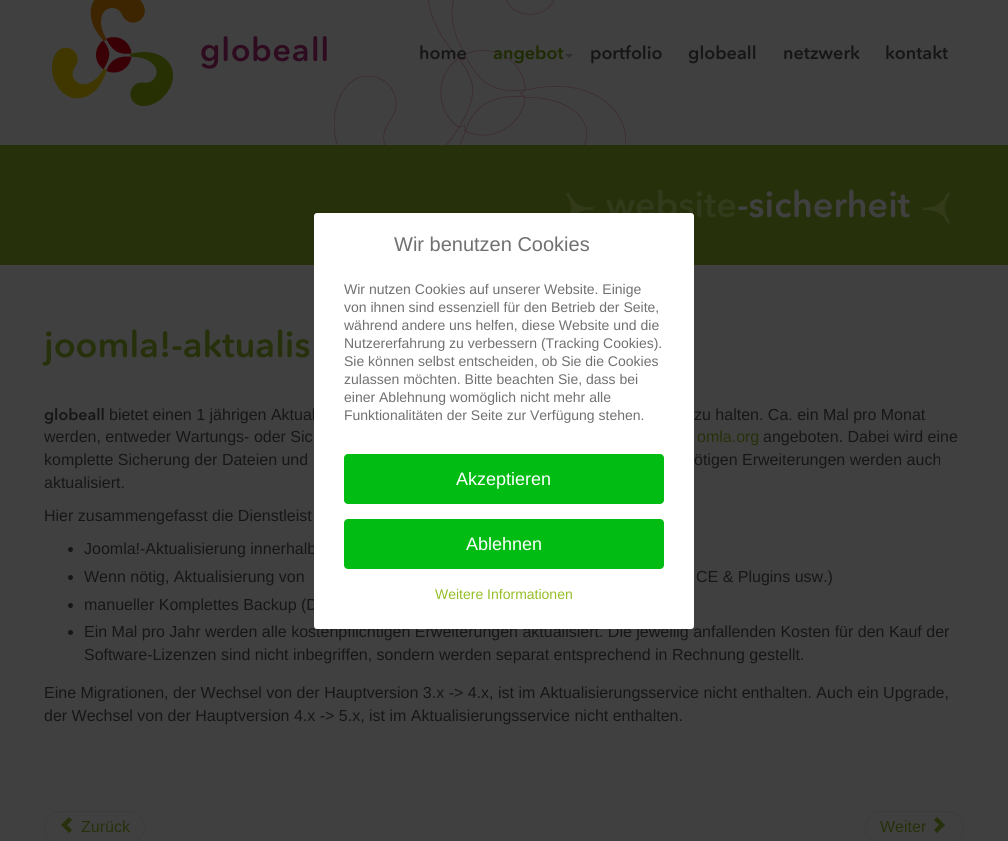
import math
import cairocffi as cairo

surface = cairo.ImageSurface(cairo.FORMAT_RGB24, 1008, 841)
cr = cairo.Context(surface)
options = cairo.FontOptions()
options.set_hint_metrics(cairo.HINT_METRICS_OFF)
options.set_hint_style(cairo.HINT_STYLE_NONE)
cr.set_font_options(options)
cr.set_miter_limit(4)


def use_color(code):
    cr.set_source_rgb(*(v / 255 for v in bytes.fromhex(code[-6:])))


def round_rect(x, y, w, h, r):
    cr.new_sub_path()
    for i, (u, v) in enumerate([(x + w - r, y + h - r), (x + r, y + h - r), (x + r, y + r), (x + w - r, y + r)]):
        cr.arc(u, v, r, i * math.pi / 2, (i + 1) * math.pi / 2)
    cr.close_path()


def picture(path, x, y, w, h):
    cr.save()
    cr.set_source_surface(cairo.ImageSurface.create_from_png(path), x, y)
    cr.rectangle(x, y, w, h)
    cr.fill()
    cr.restore()


use_color("#404040")
cr.paint()
picture("img1.png", 334, 0, 292, 145)
picture("img2.png", 52, 0, 275, 106)
cr.select_font_face("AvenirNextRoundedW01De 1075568 SemiBold")
cr.set_font_size(18)
use_color("#161616")
cr.move_to(419, 59)
cr.show_text("home")
use_color("#1e2b02")
cr.move_to(493, 59)
cr.show_text("angebot")
use_color("#2e2e2e")
cr.new_path()
cr.move_to(565, 54)
cr.line_to(573, 54)
cr.line_to(569, 58)
cr.close_path()
cr.fill()
use_color("#161616")
cr.move_to(590, 59)
cr.show_text("portfolio")
cr.move_to(688, 59)
cr.show_text("globeall")
cr.move_to(783, 59)
cr.show_text("netzwerk")
cr.move_to(885, 59)
cr.show_text("kontakt")
use_color("#26300a")
cr.rectangle(0, 145, 1008, 120)
cr.fill()
picture("img3.png", 565, 191, 30, 22)
cr.set_font_size(36)
use_color("#323a1c")
cr.move_to(606, 217)
cr.show_text("website")
use_color("#404040")
cr.move_to(737, 217)
cr.show_text("-sicherheit")
picture("img4.png", 921, 191, 30, 35)
use_color("#26300a")
cr.move_to(44, 357)
cr.show_text("joomla!-aktualis")
cr.set_font_size(16)
use_color("#161616")
cr.move_to(44, 420)
cr.show_text("globeall")
cr.select_font_face("Liberation Sans")
cr.move_to(109, 420)
cr.show_text("bietet einen 1 jährigen Aktual")
cr.move_to(694, 420)
cr.show_text("zu halten. Ca. ein Mal pro Monat")
cr.move_to(44, 442)
cr.show_text("werden, entweder Wartungs- oder Sic")
use_color("#26300a")
cr.move_to(697, 442)
cr.show_text("omla.org")
use_color("#161616")
cr.move_to(763, 442)
cr.show_text("angeboten. Dabei wird eine")
cr.move_to(44, 465)
cr.show_text("komplette Sicherung der Dateien und")
cr.move_to(694, 465)
cr.show_text("ötigen Erweiterungen werden auch")
cr.move_to(44, 488)
cr.show_text("aktualisiert.")
cr.move_to(44, 521)
cr.show_text("Hier zusammengefasst die Dienstleist")
cr.new_path()
cr.arc(70.5, 549.5, 2.5, 0, 2 * math.pi)
cr.fill()
cr.move_to(84, 554)
cr.show_text("Joomla!-Aktualisierung innerhalb")
cr.new_path()
cr.arc(70.5, 577.5, 2.5, 0, 2 * math.pi)
cr.fill()
cr.move_to(84, 582)
cr.show_text("Wenn nötig, Aktualisierung von")
cr.move_to(696, 582)
cr.show_text("CE & Plugins usw.)")
cr.new_path()
cr.arc(70.5, 605.5, 2.5, 0, 2 * math.pi)
cr.fill()
cr.move_to(84, 610)
cr.show_text("manueller Komplettes Backup (D")
cr.new_path()
cr.arc(70.5, 632.5, 2.5, 0, 2 * math.pi)
cr.fill()
cr.move_to(84, 637)
cr.show_text("Ein Mal pro Jahr werden alle kostenpflichtigen Erweiterungen aktualisiert. Die jeweilig anfallenden Kosten für den Kauf der")
cr.move_to(84, 660)
cr.show_text("Software-Lizenzen sind nicht inbegriffen, sondern werden separat entsprechend in Rechnung gestellt.")
cr.move_to(44, 698)
cr.show_text("Eine Migrationen, der Wechsel von der Hauptversion 3.x -> 4.x, ist im Aktualisierungsservice nicht enthalten. Auch ein Upgrade,")
cr.move_to(44, 721)
cr.show_text("der Wechsel von der Hauptversion 4.x -> 5.x, ist im Aktualisierungsservice nicht enthalten.")
round_rect(44.5, 811.5, 100, 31, 15.5)
use_color("#3c3c3c")
cr.set_line_width(1)
cr.stroke()
picture("img5.png", 61, 817, 11, 16)
use_color("#26300a")
cr.move_to(81, 832)
cr.show_text("Zurück")
round_rect(865.5, 811.5, 98, 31, 15.5)
use_color("#3c3c3c")
cr.stroke()
use_color("#26300a")
cr.move_to(880, 832)
cr.show_text("Weiter")
picture("img6.png", 934, 817, 11, 16)
use_color("#ffffff")
round_rect(314, 213, 380, 416, 3)
cr.fill()
cr.set_font_size(20)
use_color("#707070")
cr.move_to(394, 251)
cr.show_text("Wir benutzen Cookies")
cr.set_font_size(14)
cr.move_to(344, 294)
cr.show_text("Wir nutzen Cookies auf unserer Website. Einige")
cr.move_to(344, 312)
cr.show_text("von ihnen sind essenziell für den Betrieb der Seite,")
cr.move_to(344, 330)
cr.show_text("während andere uns helfen, diese Website und die")
cr.move_to(344, 348)
cr.show_text("Nutzererfahrung zu verbessern (Tracking Cookies).")
cr.move_to(344, 366)
cr.show_text("Sie können selbst entscheiden, ob Sie die Cookies")
cr.move_to(344, 384)
cr.show_text("zulassen möchten. Bitte beachten Sie, dass bei")
cr.move_to(344, 402)
cr.show_text("einer Ablehnung womöglich nicht mehr alle")
cr.move_to(344, 420)
cr.show_text("Funktionalitäten der Seite zur Verfügung stehen.")
use_color("#00bc13")
round_rect(344, 454, 320, 50, 4)
cr.fill()
cr.set_font_size(18)
use_color("#ffffff")
cr.move_to(456, 485)
cr.show_text("Akzeptieren")
use_color("#00bc13")
round_rect(344, 519, 320, 50, 4)
cr.fill()
use_color("#ffffff")
cr.move_to(466, 550)
cr.show_text("Ablehnen")
cr.set_font_size(14)
use_color("#96be27")
cr.move_to(435, 599)
cr.show_text("Weitere Informationen")
surface.write_to_png("result.png")
